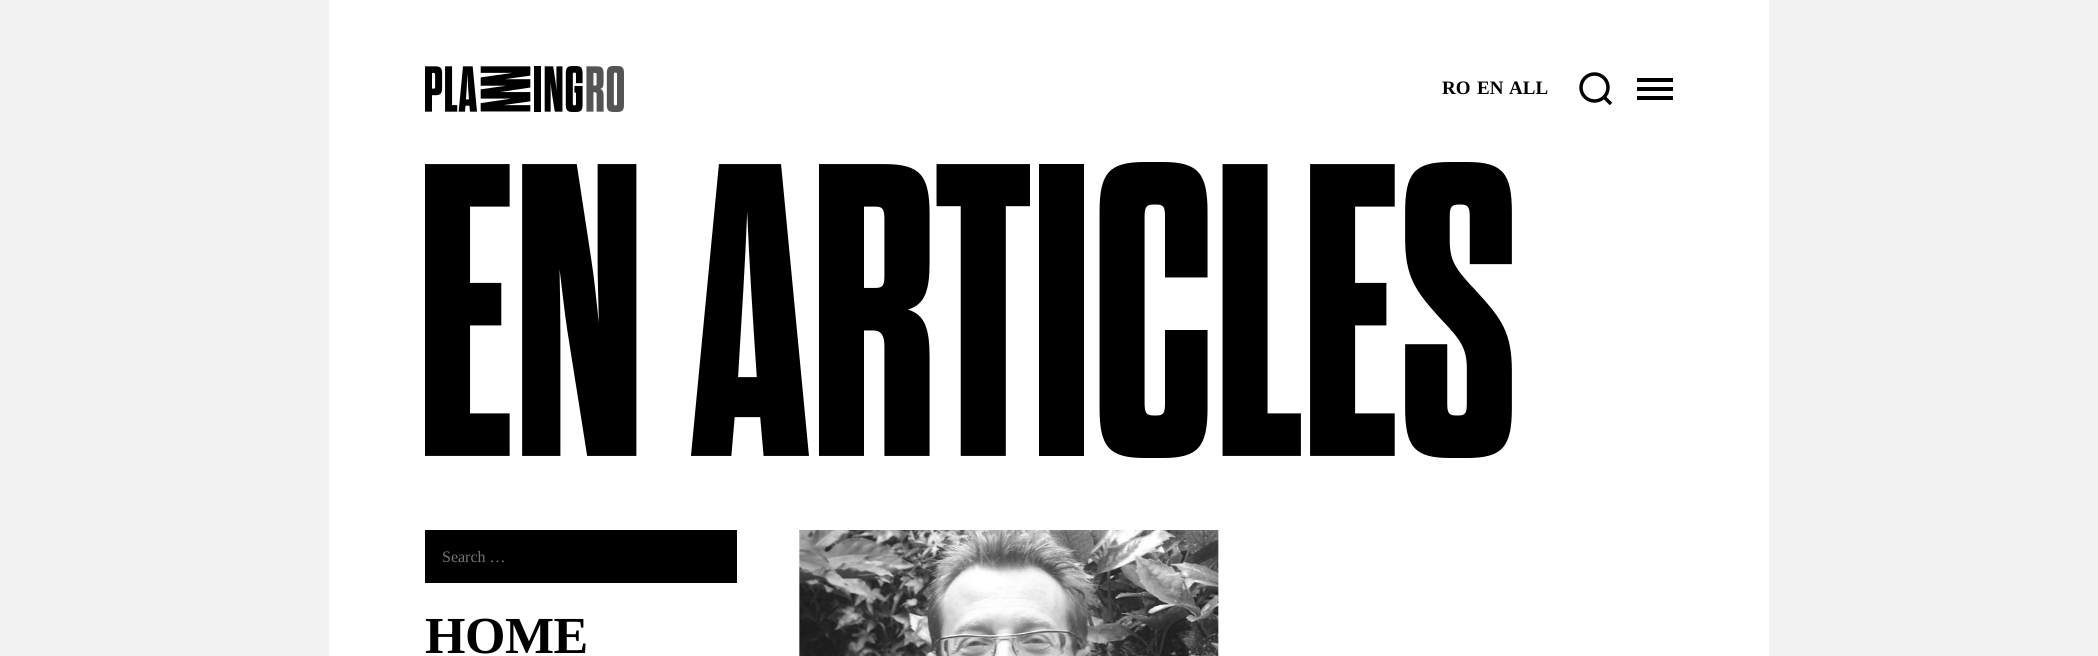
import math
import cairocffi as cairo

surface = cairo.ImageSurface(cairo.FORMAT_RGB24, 2098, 656)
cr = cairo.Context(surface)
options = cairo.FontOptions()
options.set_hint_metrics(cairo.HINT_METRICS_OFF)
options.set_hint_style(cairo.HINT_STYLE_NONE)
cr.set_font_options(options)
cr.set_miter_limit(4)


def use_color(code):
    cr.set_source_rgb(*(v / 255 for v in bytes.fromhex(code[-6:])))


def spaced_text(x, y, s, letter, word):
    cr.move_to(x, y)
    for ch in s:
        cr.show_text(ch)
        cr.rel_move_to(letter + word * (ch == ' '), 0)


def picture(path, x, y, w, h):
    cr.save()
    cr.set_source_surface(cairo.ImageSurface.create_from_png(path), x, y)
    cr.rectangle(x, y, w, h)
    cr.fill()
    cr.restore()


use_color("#f2f2f2")
cr.paint()
use_color("#ffffff")
cr.rectangle(329, 0, 1440, 656)
cr.fill()
picture("img1.png", 425, 66, 199, 46)
cr.select_font_face("Liberation Serif", cairo.FONT_SLANT_NORMAL, cairo.FONT_WEIGHT_BOLD)
cr.set_font_size(19)
use_color("#000000")
cr.move_to(1442, 94)
cr.show_text("RO")
cr.move_to(1477, 94)
cr.show_text("EN")
cr.move_to(1509, 94)
cr.show_text("ALL")
cr.new_path()
cr.move_to(1604, 97)
cr.line_to(1611, 104)
cr.set_line_width(3.5)
cr.stroke()
cr.arc(1594.5, 87.5, 13.5, 0, 2 * math.pi)
cr.stroke()
cr.rectangle(1637, 87, 36, 4)
cr.fill()
cr.rectangle(1637, 78, 36, 4)
cr.fill()
cr.rectangle(1637, 96, 36, 4)
cr.fill()
picture("img2.png", 425, 162, 1087, 296)
cr.rectangle(425, 530, 312, 53)
cr.fill()
cr.select_font_face("Liberation Serif")
cr.set_font_size(16)
use_color("#757575")
cr.move_to(442, 562)
cr.show_text("Search …")
cr.select_font_face("Liberation Serif", cairo.FONT_SLANT_NORMAL, cairo.FONT_WEIGHT_BOLD)
cr.set_font_size(52)
use_color("#000000")
spaced_text(425, 653, "HOME", -0.5, 0)
picture("img3.png", 799, 530, 420, 126)
surface.write_to_png("result.png")
